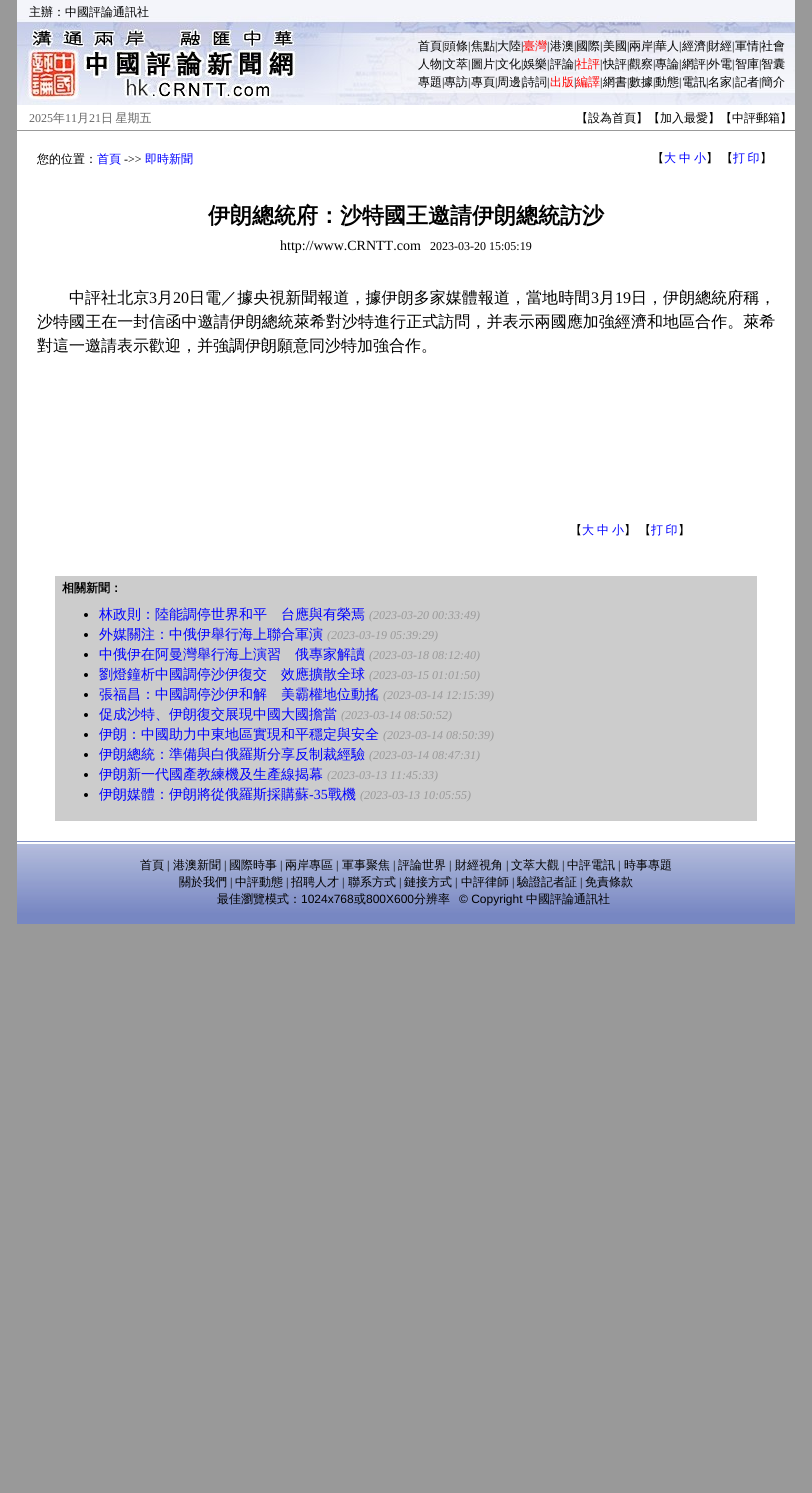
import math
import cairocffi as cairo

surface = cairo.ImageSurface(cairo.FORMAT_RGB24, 812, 1493)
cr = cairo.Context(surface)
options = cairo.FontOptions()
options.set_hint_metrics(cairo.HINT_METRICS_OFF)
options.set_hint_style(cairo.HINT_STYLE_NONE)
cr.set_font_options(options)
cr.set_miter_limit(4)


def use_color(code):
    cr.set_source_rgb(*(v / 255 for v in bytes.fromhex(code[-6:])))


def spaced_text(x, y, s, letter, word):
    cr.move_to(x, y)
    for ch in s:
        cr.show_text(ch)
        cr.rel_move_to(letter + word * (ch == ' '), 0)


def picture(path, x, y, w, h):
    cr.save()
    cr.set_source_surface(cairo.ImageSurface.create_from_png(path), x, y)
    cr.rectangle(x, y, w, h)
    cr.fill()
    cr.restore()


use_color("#999999")
cr.paint()
picture("img1.png", 17, 0, 778, 105)
cr.select_font_face("WenQuanYi Zen Hei Medium")
cr.set_font_size(12)
use_color("#000000")
cr.move_to(29, 16)
cr.show_text("主辦：中國評論通訊社")
cr.move_to(418, 50)
cr.show_text("首頁")
cr.select_font_face("Liberation Serif")
cr.move_to(442, 50)
cr.show_text("|")
cr.select_font_face("WenQuanYi Zen Hei Medium")
cr.move_to(444, 50)
cr.show_text("頭條")
cr.select_font_face("Liberation Serif")
cr.move_to(468, 50)
cr.show_text("|")
cr.select_font_face("WenQuanYi Zen Hei Medium")
cr.move_to(471, 50)
cr.show_text("焦點")
cr.select_font_face("Liberation Serif")
cr.move_to(495, 50)
cr.show_text("|")
cr.select_font_face("WenQuanYi Zen Hei Medium")
cr.move_to(497, 50)
cr.show_text("大陸")
cr.select_font_face("Liberation Serif")
cr.move_to(521, 50)
cr.show_text("|")
cr.select_font_face("WenQuanYi Zen Hei Medium")
use_color("#ff0000")
cr.move_to(523, 50)
cr.show_text("臺灣")
cr.select_font_face("Liberation Serif")
use_color("#000000")
cr.move_to(547, 50)
cr.show_text("|")
cr.select_font_face("WenQuanYi Zen Hei Medium")
cr.move_to(550, 50)
cr.show_text("港澳")
cr.select_font_face("Liberation Serif")
cr.move_to(574, 50)
cr.show_text("|")
cr.select_font_face("WenQuanYi Zen Hei Medium")
cr.move_to(576, 50)
cr.show_text("國際")
cr.select_font_face("Liberation Serif")
cr.move_to(600, 50)
cr.show_text("|")
cr.select_font_face("WenQuanYi Zen Hei Medium")
cr.move_to(603, 50)
cr.show_text("美國")
cr.select_font_face("Liberation Serif")
cr.move_to(627, 50)
cr.show_text("|")
cr.select_font_face("WenQuanYi Zen Hei Medium")
cr.move_to(629, 50)
cr.show_text("兩岸")
cr.select_font_face("Liberation Serif")
cr.move_to(653, 50)
cr.show_text("|")
cr.select_font_face("WenQuanYi Zen Hei Medium")
cr.move_to(655, 50)
cr.show_text("華人")
cr.select_font_face("Liberation Serif")
cr.move_to(679, 50)
cr.show_text("|")
cr.select_font_face("WenQuanYi Zen Hei Medium")
cr.move_to(682, 50)
cr.show_text("經濟")
cr.select_font_face("Liberation Serif")
cr.move_to(706, 50)
cr.show_text("|")
cr.select_font_face("WenQuanYi Zen Hei Medium")
cr.move_to(708, 50)
cr.show_text("財經")
cr.select_font_face("Liberation Serif")
cr.move_to(732, 50)
cr.show_text("|")
cr.select_font_face("WenQuanYi Zen Hei Medium")
cr.move_to(735, 50)
cr.show_text("軍情")
cr.select_font_face("Liberation Serif")
cr.move_to(759, 50)
cr.show_text("|")
cr.select_font_face("WenQuanYi Zen Hei Medium")
cr.move_to(761, 50)
cr.show_text("社會")
cr.move_to(418, 68)
cr.show_text("人物")
cr.select_font_face("Liberation Serif")
cr.move_to(442, 68)
cr.show_text("|")
cr.select_font_face("WenQuanYi Zen Hei Medium")
cr.move_to(444, 68)
cr.show_text("文萃")
cr.select_font_face("Liberation Serif")
cr.move_to(468, 68)
cr.show_text("|")
cr.select_font_face("WenQuanYi Zen Hei Medium")
cr.move_to(471, 68)
cr.show_text("圖片")
cr.select_font_face("Liberation Serif")
cr.move_to(495, 68)
cr.show_text("|")
cr.select_font_face("WenQuanYi Zen Hei Medium")
cr.move_to(497, 68)
cr.show_text("文化")
cr.select_font_face("Liberation Serif")
cr.move_to(521, 68)
cr.show_text("|")
cr.select_font_face("WenQuanYi Zen Hei Medium")
cr.move_to(523, 68)
cr.show_text("娛樂")
cr.select_font_face("Liberation Serif")
cr.move_to(547, 68)
cr.show_text("|")
cr.select_font_face("WenQuanYi Zen Hei Medium")
cr.move_to(550, 68)
cr.show_text("評論")
cr.select_font_face("Liberation Serif")
cr.move_to(574, 68)
cr.show_text("|")
cr.select_font_face("WenQuanYi Zen Hei Medium")
use_color("#ff0000")
cr.move_to(576, 68)
cr.show_text("社評")
cr.select_font_face("Liberation Serif")
use_color("#000000")
cr.move_to(600, 68)
cr.show_text("|")
cr.select_font_face("WenQuanYi Zen Hei Medium")
cr.move_to(603, 68)
cr.show_text("快評")
cr.select_font_face("Liberation Serif")
cr.move_to(627, 68)
cr.show_text("|")
cr.select_font_face("WenQuanYi Zen Hei Medium")
cr.move_to(629, 68)
cr.show_text("觀察")
cr.select_font_face("Liberation Serif")
cr.move_to(653, 68)
cr.show_text("|")
cr.select_font_face("WenQuanYi Zen Hei Medium")
cr.move_to(655, 68)
cr.show_text("專論")
cr.select_font_face("Liberation Serif")
cr.move_to(679, 68)
cr.show_text("|")
cr.select_font_face("WenQuanYi Zen Hei Medium")
cr.move_to(682, 68)
cr.show_text("網評")
cr.select_font_face("Liberation Serif")
cr.move_to(706, 68)
cr.show_text("|")
cr.select_font_face("WenQuanYi Zen Hei Medium")
cr.move_to(708, 68)
cr.show_text("外電")
cr.select_font_face("Liberation Serif")
cr.move_to(732, 68)
cr.show_text("|")
cr.select_font_face("WenQuanYi Zen Hei Medium")
cr.move_to(735, 68)
cr.show_text("智庫")
cr.select_font_face("Liberation Serif")
cr.move_to(759, 68)
cr.show_text("|")
cr.select_font_face("WenQuanYi Zen Hei Medium")
cr.move_to(761, 68)
cr.show_text("智囊")
cr.move_to(418, 86)
cr.show_text("專題")
cr.select_font_face("Liberation Serif")
cr.move_to(442, 86)
cr.show_text("|")
cr.select_font_face("WenQuanYi Zen Hei Medium")
cr.move_to(444, 86)
cr.show_text("專訪")
cr.select_font_face("Liberation Serif")
cr.move_to(468, 86)
cr.show_text("|")
cr.select_font_face("WenQuanYi Zen Hei Medium")
cr.move_to(471, 86)
cr.show_text("專頁")
cr.select_font_face("Liberation Serif")
cr.move_to(495, 86)
cr.show_text("|")
cr.select_font_face("WenQuanYi Zen Hei Medium")
cr.move_to(497, 86)
cr.show_text("周邊")
cr.select_font_face("Liberation Serif")
cr.move_to(521, 86)
cr.show_text("|")
cr.select_font_face("WenQuanYi Zen Hei Medium")
cr.move_to(523, 86)
cr.show_text("詩詞")
cr.select_font_face("Liberation Serif")
cr.move_to(547, 86)
cr.show_text("|")
cr.select_font_face("WenQuanYi Zen Hei Medium")
use_color("#ff0000")
cr.move_to(550, 86)
cr.show_text("出版")
cr.select_font_face("Liberation Serif")
use_color("#000000")
cr.move_to(574, 86)
cr.show_text("|")
cr.select_font_face("WenQuanYi Zen Hei Medium")
use_color("#ff0000")
cr.move_to(576, 86)
cr.show_text("編譯")
cr.select_font_face("Liberation Serif")
use_color("#000000")
cr.move_to(600, 86)
cr.show_text("|")
cr.select_font_face("WenQuanYi Zen Hei Medium")
cr.move_to(603, 86)
cr.show_text("網書")
cr.select_font_face("Liberation Serif")
cr.move_to(627, 86)
cr.show_text("|")
cr.select_font_face("WenQuanYi Zen Hei Medium")
cr.move_to(629, 86)
cr.show_text("數據")
cr.select_font_face("Liberation Serif")
cr.move_to(653, 86)
cr.show_text("|")
cr.select_font_face("WenQuanYi Zen Hei Medium")
cr.move_to(655, 86)
cr.show_text("動態")
cr.select_font_face("Liberation Serif")
cr.move_to(679, 86)
cr.show_text("|")
cr.select_font_face("WenQuanYi Zen Hei Medium")
cr.move_to(682, 86)
cr.show_text("電訊")
cr.select_font_face("Liberation Serif")
cr.move_to(706, 86)
cr.show_text("|")
cr.select_font_face("WenQuanYi Zen Hei Medium")
cr.move_to(708, 86)
cr.show_text("名家")
cr.select_font_face("Liberation Serif")
cr.move_to(732, 86)
cr.show_text("|")
cr.select_font_face("WenQuanYi Zen Hei Medium")
cr.move_to(735, 86)
cr.show_text("記者")
cr.select_font_face("Liberation Serif")
cr.move_to(759, 86)
cr.show_text("|")
cr.select_font_face("WenQuanYi Zen Hei Medium")
cr.move_to(761, 86)
cr.show_text("簡介")
use_color("#ffffff")
cr.rectangle(17, 105, 778, 25)
cr.fill()
cr.select_font_face("Liberation Serif")
use_color("#666666")
cr.move_to(29, 122)
cr.show_text("2025")
cr.select_font_face("WenQuanYi Zen Hei Medium")
cr.move_to(53, 122)
cr.show_text("年")
cr.select_font_face("Liberation Serif")
cr.move_to(65, 122)
cr.show_text("11")
cr.select_font_face("WenQuanYi Zen Hei Medium")
cr.move_to(77, 122)
cr.show_text("月")
cr.select_font_face("Liberation Serif")
cr.move_to(89, 122)
cr.show_text("21")
cr.select_font_face("WenQuanYi Zen Hei Medium")
spaced_text(101, 122, "日 星期五", 0, -1)
use_color("#000000")
cr.move_to(576, 122)
cr.show_text("【設為首頁】【加入最愛】【中評郵箱】")
use_color("#ffffff")
cr.rectangle(17, 131, 778, 710)
cr.fill()
use_color("#000000")
cr.move_to(37, 163)
cr.show_text("您的位置：")
use_color("#0000ff")
cr.move_to(97, 163)
cr.show_text("首頁")
cr.select_font_face("Liberation Serif")
use_color("#000000")
cr.move_to(124, 163)
cr.show_text("->>")
cr.select_font_face("WenQuanYi Zen Hei Medium")
use_color("#0000ff")
cr.move_to(145, 163)
cr.show_text("即時新聞")
use_color("#000000")
cr.move_to(652, 162)
cr.show_text("【")
use_color("#0000ff")
cr.move_to(664, 162)
cr.show_text("大")
cr.move_to(679, 162)
cr.show_text("中")
cr.move_to(694, 162)
cr.show_text("小")
use_color("#000000")
cr.move_to(706, 162)
cr.show_text("】")
cr.move_to(721, 162)
cr.show_text("【")
use_color("#0000ff")
spaced_text(733, 162, "打 印", 0, -1)
use_color("#000000")
cr.move_to(760, 162)
cr.show_text("】")
cr.select_font_face("WenQuanYi Zen Hei", cairo.FONT_SLANT_NORMAL, cairo.FONT_WEIGHT_BOLD)
cr.set_font_size(22)
cr.move_to(208, 223)
cr.show_text("伊朗總統府：沙特國王邀請伊朗總統訪沙")
cr.select_font_face("Liberation Serif")
cr.set_font_size(14)
cr.move_to(280, 250)
cr.show_text("http://www.CRNTT.com")
cr.set_font_size(12)
cr.move_to(430, 250)
cr.show_text("2023-03-20 15:05:19")
cr.select_font_face("WenQuanYi Zen Hei Medium")
cr.set_font_size(16)
spaced_text(69, 303, "中評社北京", 0.05, 0)
cr.select_font_face("Liberation Serif")
spaced_text(149, 303, "3", 0.05, 0)
cr.select_font_face("WenQuanYi Zen Hei Medium")
spaced_text(157, 303, "月", 0.05, 0)
cr.select_font_face("Liberation Serif")
spaced_text(173, 303, "20", 0.05, 0)
cr.select_font_face("WenQuanYi Zen Hei Medium")
spaced_text(189, 303, "日電／據央視新聞報道，據伊朗多家媒體報道，當地時間", 0.05, 0)
cr.select_font_face("Liberation Serif")
spaced_text(591, 303, "3", 0.05, 0)
cr.select_font_face("WenQuanYi Zen Hei Medium")
spaced_text(599, 303, "月", 0.05, 0)
cr.select_font_face("Liberation Serif")
spaced_text(615, 303, "19", 0.05, 0)
cr.select_font_face("WenQuanYi Zen Hei Medium")
spaced_text(631, 303, "日，伊朗總統府稱，", 0.05, 0)
spaced_text(37, 327, "沙特國王在一封信函中邀請伊朗總統萊希對沙特進行正式訪問，并表示兩國應加強經濟和地區合作。萊希", 0.05, 0)
cr.move_to(37, 351)
cr.show_text("對這一邀請表示歡迎，并強調伊朗願意同沙特加強合作。")
cr.set_font_size(12)
cr.move_to(570, 534)
cr.show_text("【")
use_color("#0000ff")
cr.move_to(582, 534)
cr.show_text("大")
cr.move_to(597, 534)
cr.show_text("中")
cr.move_to(612, 534)
cr.show_text("小")
use_color("#000000")
cr.move_to(624, 534)
cr.show_text("】")
cr.move_to(639, 534)
cr.show_text("【")
use_color("#0000ff")
spaced_text(651, 534, "打 印", 0, -1)
use_color("#000000")
cr.move_to(678, 534)
cr.show_text("】")
use_color("#cccccc")
cr.rectangle(55, 576, 702, 245)
cr.fill()
cr.select_font_face("WenQuanYi Zen Hei", cairo.FONT_SLANT_NORMAL, cairo.FONT_WEIGHT_BOLD)
use_color("#000000")
cr.move_to(62, 592)
cr.show_text("相關新聞：")
cr.new_path()
cr.arc(86, 615, 2, 0, 2 * math.pi)
cr.fill()
cr.select_font_face("WenQuanYi Zen Hei Medium")
cr.set_font_size(14)
use_color("#0000ff")
cr.move_to(99, 619)
cr.show_text("林政則：陸能調停世界和平　台應與有榮焉")
cr.select_font_face("Liberation Serif", cairo.FONT_SLANT_ITALIC)
cr.set_font_size(12)
use_color("#999999")
cr.move_to(369, 619)
cr.show_text("(2023-03-20 00:33:49)")
use_color("#000000")
cr.new_path()
cr.arc(86, 635, 2, 0, 2 * math.pi)
cr.fill()
cr.select_font_face("WenQuanYi Zen Hei Medium")
cr.set_font_size(14)
use_color("#0000ff")
cr.move_to(99, 639)
cr.show_text("外媒關注：中俄伊舉行海上聯合軍演")
cr.select_font_face("Liberation Serif", cairo.FONT_SLANT_ITALIC)
cr.set_font_size(12)
use_color("#999999")
cr.move_to(327, 639)
cr.show_text("(2023-03-19 05:39:29)")
use_color("#000000")
cr.new_path()
cr.arc(86, 655, 2, 0, 2 * math.pi)
cr.fill()
cr.select_font_face("WenQuanYi Zen Hei Medium")
cr.set_font_size(14)
use_color("#0000ff")
cr.move_to(99, 659)
cr.show_text("中俄伊在阿曼灣舉行海上演習　俄專家解讀")
cr.select_font_face("Liberation Serif", cairo.FONT_SLANT_ITALIC)
cr.set_font_size(12)
use_color("#999999")
cr.move_to(369, 659)
cr.show_text("(2023-03-18 08:12:40)")
use_color("#000000")
cr.new_path()
cr.arc(86, 675, 2, 0, 2 * math.pi)
cr.fill()
cr.select_font_face("WenQuanYi Zen Hei Medium")
cr.set_font_size(14)
use_color("#0000ff")
cr.move_to(99, 679)
cr.show_text("劉燈鐘析中國調停沙伊復交　效應擴散全球")
cr.select_font_face("Liberation Serif", cairo.FONT_SLANT_ITALIC)
cr.set_font_size(12)
use_color("#999999")
cr.move_to(369, 679)
cr.show_text("(2023-03-15 01:01:50)")
use_color("#000000")
cr.new_path()
cr.arc(86, 695, 2, 0, 2 * math.pi)
cr.fill()
cr.select_font_face("WenQuanYi Zen Hei Medium")
cr.set_font_size(14)
use_color("#0000ff")
cr.move_to(99, 699)
cr.show_text("張福昌：中國調停沙伊和解　美霸權地位動搖")
cr.select_font_face("Liberation Serif", cairo.FONT_SLANT_ITALIC)
cr.set_font_size(12)
use_color("#999999")
cr.move_to(383, 699)
cr.show_text("(2023-03-14 12:15:39)")
use_color("#000000")
cr.new_path()
cr.arc(86, 715, 2, 0, 2 * math.pi)
cr.fill()
cr.select_font_face("WenQuanYi Zen Hei Medium")
cr.set_font_size(14)
use_color("#0000ff")
cr.move_to(99, 719)
cr.show_text("促成沙特、伊朗復交展現中國大國擔當")
cr.select_font_face("Liberation Serif", cairo.FONT_SLANT_ITALIC)
cr.set_font_size(12)
use_color("#999999")
cr.move_to(341, 719)
cr.show_text("(2023-03-14 08:50:52)")
use_color("#000000")
cr.new_path()
cr.arc(86, 735, 2, 0, 2 * math.pi)
cr.fill()
cr.select_font_face("WenQuanYi Zen Hei Medium")
cr.set_font_size(14)
use_color("#0000ff")
cr.move_to(99, 739)
cr.show_text("伊朗：中國助力中東地區實現和平穩定與安全")
cr.select_font_face("Liberation Serif", cairo.FONT_SLANT_ITALIC)
cr.set_font_size(12)
use_color("#999999")
cr.move_to(383, 739)
cr.show_text("(2023-03-14 08:50:39)")
use_color("#000000")
cr.new_path()
cr.arc(86, 755, 2, 0, 2 * math.pi)
cr.fill()
cr.select_font_face("WenQuanYi Zen Hei Medium")
cr.set_font_size(14)
use_color("#0000ff")
cr.move_to(99, 759)
cr.show_text("伊朗總統：準備與白俄羅斯分享反制裁經驗")
cr.select_font_face("Liberation Serif", cairo.FONT_SLANT_ITALIC)
cr.set_font_size(12)
use_color("#999999")
cr.move_to(369, 759)
cr.show_text("(2023-03-14 08:47:31)")
use_color("#000000")
cr.new_path()
cr.arc(86, 775, 2, 0, 2 * math.pi)
cr.fill()
cr.select_font_face("WenQuanYi Zen Hei Medium")
cr.set_font_size(14)
use_color("#0000ff")
cr.move_to(99, 779)
cr.show_text("伊朗新一代國產教練機及生產線揭幕")
cr.select_font_face("Liberation Serif", cairo.FONT_SLANT_ITALIC)
cr.set_font_size(12)
use_color("#999999")
cr.move_to(327, 779)
cr.show_text("(2023-03-13 11:45:33)")
use_color("#000000")
cr.new_path()
cr.arc(86, 795, 2, 0, 2 * math.pi)
cr.fill()
cr.select_font_face("WenQuanYi Zen Hei Medium")
cr.set_font_size(14)
use_color("#0000ff")
cr.move_to(99, 799)
cr.show_text("伊朗媒體：伊朗將從俄羅斯採購蘇")
cr.select_font_face("Liberation Serif")
cr.move_to(309, 799)
cr.show_text("-35")
cr.select_font_face("WenQuanYi Zen Hei Medium")
cr.move_to(328, 799)
cr.show_text("戰機")
cr.select_font_face("Liberation Serif", cairo.FONT_SLANT_ITALIC)
cr.set_font_size(12)
use_color("#999999")
cr.move_to(360, 799)
cr.show_text("(2023-03-13 10:05:55)")
picture("img2.png", 17, 841, 778, 83)
cr.select_font_face("WenQuanYi Zen Hei Medium")
use_color("#000000")
cr.move_to(140, 869)
cr.show_text("首頁")
cr.select_font_face("Liberation Serif")
cr.move_to(167, 869)
cr.show_text("|")
cr.select_font_face("WenQuanYi Zen Hei Medium")
cr.move_to(173, 869)
cr.show_text("港澳新聞")
cr.select_font_face("Liberation Serif")
cr.move_to(224, 869)
cr.show_text("|")
cr.select_font_face("WenQuanYi Zen Hei Medium")
cr.move_to(229, 869)
cr.show_text("國際時事")
cr.select_font_face("Liberation Serif")
cr.move_to(280, 869)
cr.show_text("|")
cr.select_font_face("WenQuanYi Zen Hei Medium")
cr.move_to(285, 869)
cr.show_text("兩岸專區")
cr.select_font_face("Liberation Serif")
cr.move_to(336, 869)
cr.show_text("|")
cr.select_font_face("WenQuanYi Zen Hei Medium")
cr.move_to(342, 869)
cr.show_text("軍事聚焦")
cr.select_font_face("Liberation Serif")
cr.move_to(393, 869)
cr.show_text("|")
cr.select_font_face("WenQuanYi Zen Hei Medium")
cr.move_to(398, 869)
cr.show_text("評論世界")
cr.select_font_face("Liberation Serif")
cr.move_to(449, 869)
cr.show_text("|")
cr.select_font_face("WenQuanYi Zen Hei Medium")
cr.move_to(455, 869)
cr.show_text("財經視角")
cr.select_font_face("Liberation Serif")
cr.move_to(506, 869)
cr.show_text("|")
cr.select_font_face("WenQuanYi Zen Hei Medium")
cr.move_to(511, 869)
cr.show_text("文萃大觀")
cr.select_font_face("Liberation Serif")
cr.move_to(562, 869)
cr.show_text("|")
cr.select_font_face("WenQuanYi Zen Hei Medium")
cr.move_to(567, 869)
cr.show_text("中評電訊")
cr.select_font_face("Liberation Serif")
cr.move_to(618, 869)
cr.show_text("|")
cr.select_font_face("WenQuanYi Zen Hei Medium")
cr.move_to(624, 869)
cr.show_text("時事專題")
cr.move_to(179, 886)
cr.show_text("關於我們")
cr.select_font_face("Liberation Serif")
cr.move_to(230, 886)
cr.show_text("|")
cr.select_font_face("WenQuanYi Zen Hei Medium")
cr.move_to(235, 886)
cr.show_text("中評動態")
cr.select_font_face("Liberation Serif")
cr.move_to(286, 886)
cr.show_text("|")
cr.select_font_face("WenQuanYi Zen Hei Medium")
cr.move_to(291, 886)
cr.show_text("招聘人才")
cr.select_font_face("Liberation Serif")
cr.move_to(342, 886)
cr.show_text("|")
cr.select_font_face("WenQuanYi Zen Hei Medium")
cr.move_to(348, 886)
cr.show_text("聯系方式")
cr.select_font_face("Liberation Serif")
cr.move_to(399, 886)
cr.show_text("|")
cr.select_font_face("WenQuanYi Zen Hei Medium")
cr.move_to(404, 886)
cr.show_text("鏈接方式")
cr.select_font_face("Liberation Serif")
cr.move_to(455, 886)
cr.show_text("|")
cr.select_font_face("WenQuanYi Zen Hei Medium")
cr.move_to(461, 886)
cr.show_text("中評律師")
cr.select_font_face("Liberation Serif")
cr.move_to(512, 886)
cr.show_text("|")
cr.select_font_face("WenQuanYi Zen Hei Medium")
cr.move_to(517, 886)
cr.show_text("驗證記者証")
cr.select_font_face("Liberation Serif")
cr.move_to(580, 886)
cr.show_text("|")
cr.select_font_face("WenQuanYi Zen Hei Medium")
cr.move_to(585, 886)
cr.show_text("免責條款")
cr.move_to(217, 903)
cr.show_text("最佳瀏覽模式：")
cr.select_font_face("Liberation Sans")
cr.move_to(301, 903)
cr.show_text("1024x768")
cr.select_font_face("WenQuanYi Zen Hei Medium")
cr.move_to(354, 903)
cr.show_text("或")
cr.select_font_face("Liberation Sans")
cr.move_to(366, 903)
cr.show_text("800X600")
cr.select_font_face("WenQuanYi Zen Hei Medium")
cr.move_to(414, 903)
cr.show_text("分辨率")
cr.select_font_face("Liberation Sans")
cr.move_to(459, 903)
cr.show_text("© Copyright")
cr.select_font_face("WenQuanYi Zen Hei Medium")
cr.move_to(526, 903)
cr.show_text("中國評論通訊社")
surface.write_to_png("result.png")
